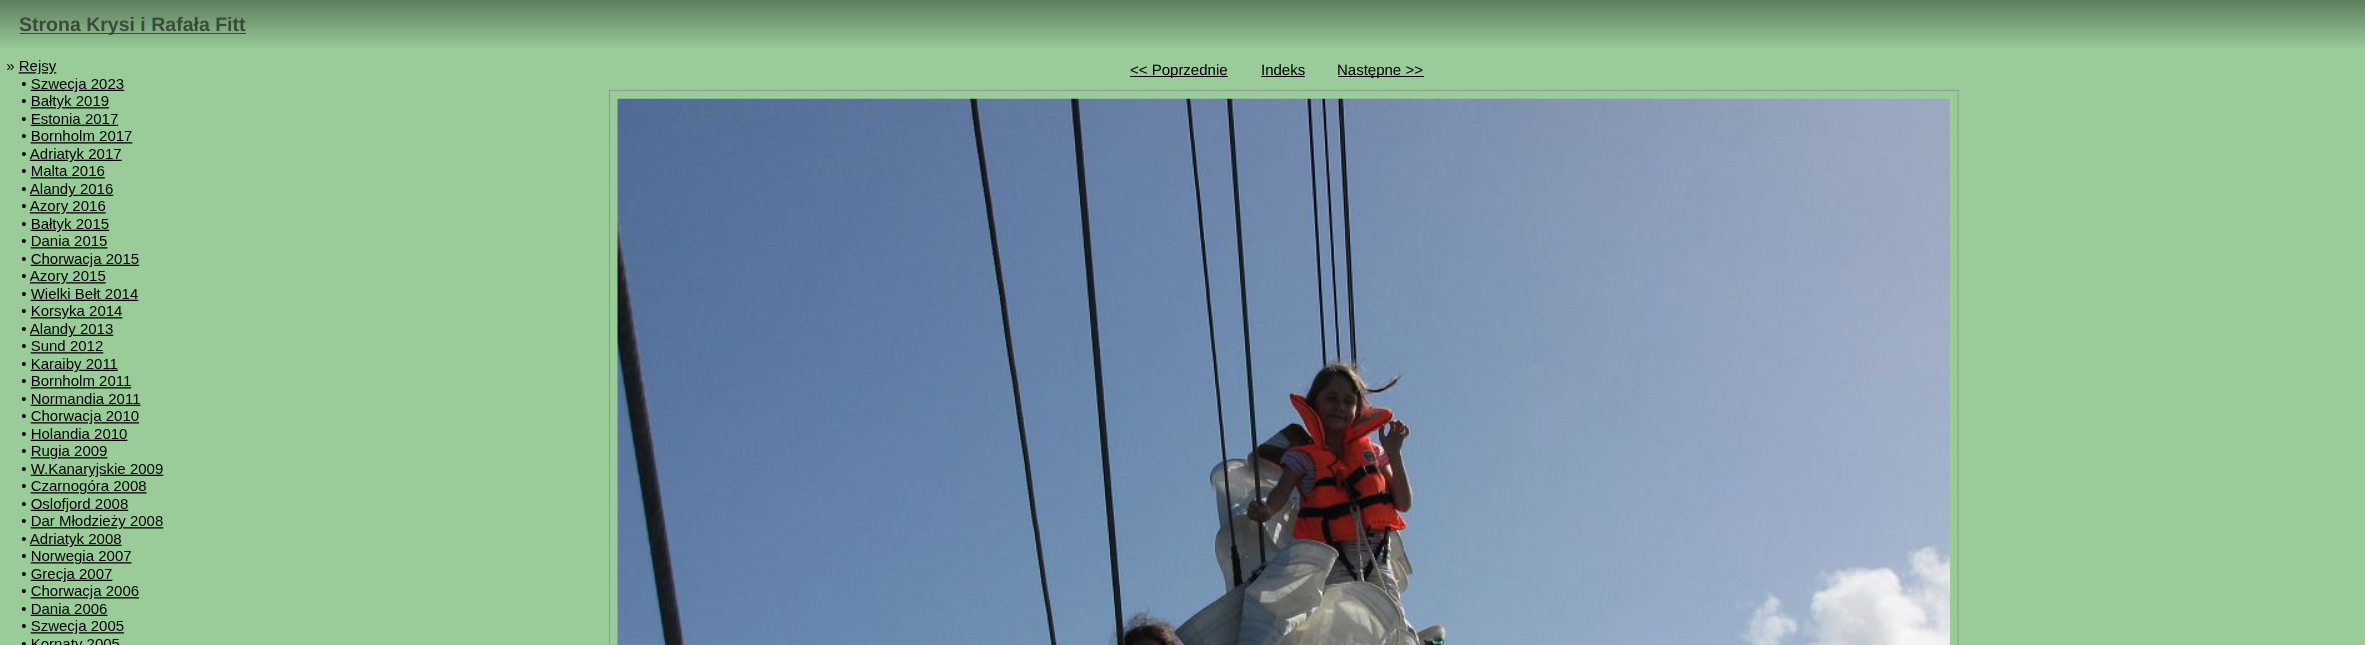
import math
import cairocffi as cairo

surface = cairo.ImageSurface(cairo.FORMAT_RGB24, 2365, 645)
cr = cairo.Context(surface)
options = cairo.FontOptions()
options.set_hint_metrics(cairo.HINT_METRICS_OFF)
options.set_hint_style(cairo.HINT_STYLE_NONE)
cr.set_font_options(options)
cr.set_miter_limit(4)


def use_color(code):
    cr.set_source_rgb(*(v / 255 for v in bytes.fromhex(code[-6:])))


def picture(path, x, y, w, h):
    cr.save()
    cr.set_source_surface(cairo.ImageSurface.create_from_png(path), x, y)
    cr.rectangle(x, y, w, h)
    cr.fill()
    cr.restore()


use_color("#99cc99")
cr.paint()
picture("img1.png", 0, 0, 2365, 47)
use_color("#394c39")
cr.rectangle(20, 33, 226, 1)
cr.fill()
cr.select_font_face("Liberation Sans", cairo.FONT_SLANT_NORMAL, cairo.FONT_WEIGHT_BOLD)
cr.set_font_size(19.5)
cr.move_to(19, 31)
cr.show_text("Strona Krysi i Rafała Fitt")
picture("img2.png", 6, 60, 158, 585)
use_color("#000000")
cr.rectangle(1130, 76, 98, 1)
cr.fill()
cr.select_font_face("Liberation Sans")
cr.set_font_size(15)
cr.move_to(1130, 75)
cr.show_text("<< Poprzednie")
cr.move_to(1261, 75)
cr.show_text("Indeks")
cr.rectangle(1261, 76, 44, 1)
cr.fill()
cr.rectangle(1338, 76, 86, 1)
cr.fill()
cr.move_to(1337, 75)
cr.show_text("Następne >>")
cr.new_path()
cr.move_to(609, 90.5)
cr.line_to(1959, 90.5)
use_color("#808080")
cr.set_line_width(1.2)
cr.set_dash([1.25, 1.25])
cr.stroke()
cr.new_path()
cr.move_to(609.5, 90)
cr.line_to(609.5, 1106)
cr.stroke()
picture("img3.png", 617, 98, 1333, 547)
cr.new_path()
cr.move_to(1958, 90)
cr.line_to(1958, 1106)
cr.stroke()
surface.write_to_png("result.png")
